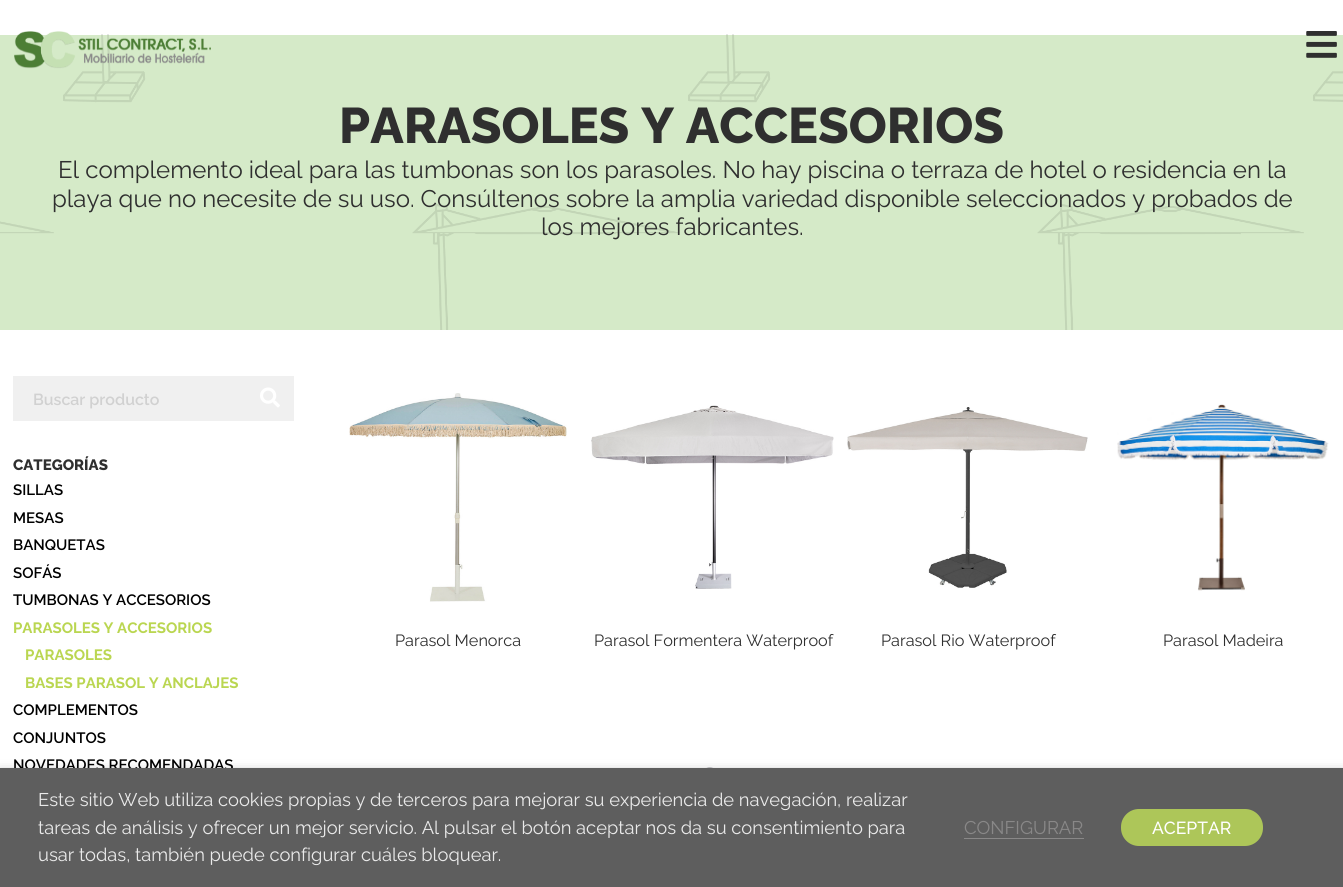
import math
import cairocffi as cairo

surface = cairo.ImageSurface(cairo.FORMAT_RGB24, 1343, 887)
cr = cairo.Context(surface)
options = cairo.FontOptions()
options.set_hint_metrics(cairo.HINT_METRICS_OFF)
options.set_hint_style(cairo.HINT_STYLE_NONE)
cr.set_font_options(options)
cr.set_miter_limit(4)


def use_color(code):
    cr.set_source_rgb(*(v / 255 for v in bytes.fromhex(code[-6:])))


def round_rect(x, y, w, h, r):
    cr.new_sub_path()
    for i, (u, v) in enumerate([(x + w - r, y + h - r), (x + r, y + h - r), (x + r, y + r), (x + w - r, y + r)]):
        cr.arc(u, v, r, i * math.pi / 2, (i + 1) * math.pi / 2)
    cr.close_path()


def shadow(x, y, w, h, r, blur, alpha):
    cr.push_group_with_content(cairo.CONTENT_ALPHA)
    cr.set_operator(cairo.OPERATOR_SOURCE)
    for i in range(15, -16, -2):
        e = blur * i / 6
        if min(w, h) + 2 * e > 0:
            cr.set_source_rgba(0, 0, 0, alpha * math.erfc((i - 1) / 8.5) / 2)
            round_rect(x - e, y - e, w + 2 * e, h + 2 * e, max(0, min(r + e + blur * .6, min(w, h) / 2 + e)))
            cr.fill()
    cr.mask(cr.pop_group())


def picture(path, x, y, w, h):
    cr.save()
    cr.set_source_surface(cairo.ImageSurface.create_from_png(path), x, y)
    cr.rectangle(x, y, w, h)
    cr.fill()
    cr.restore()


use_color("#ffffff")
cr.paint()
use_color("#d5eac8")
cr.rectangle(0, 35, 1343, 295)
cr.fill()
picture("img3.png", 0, 34, 1343, 296)
picture("img1.png", 14, 31, 197, 38)
picture("img2.png", 1306, 31, 31, 27)
cr.select_font_face("Raleway ExtraBold")
cr.set_font_size(50)
use_color("#2f2f2f")
cr.move_to(339, 143)
cr.show_text("PARASOLES Y ACCESORIOS")
cr.select_font_face("Raleway")
cr.set_font_size(24)
cr.move_to(58, 178)
cr.show_text("El complemento ideal para las tumbonas son los parasoles. No hay piscina o terraza de hotel o residencia en la")
cr.move_to(52, 207)
cr.show_text("playa que no necesite de su uso. Consúltenos sobre la amplia variedad disponible seleccionados y probados de")
cr.move_to(541, 235)
cr.show_text("los mejores fabricantes.")
use_color("#f0f0f0")
cr.rectangle(13, 376, 281, 45)
cr.fill()
cr.select_font_face("Raleway SemiBold")
cr.set_font_size(16)
use_color("#d1d1d1")
cr.move_to(33, 405)
cr.show_text("Buscar producto")
picture("img4.png", 260, 387, 20, 21)
cr.select_font_face("Raleway ExtraBold")
cr.set_font_size(15)
use_color("#2f2f2f")
cr.move_to(13, 470)
cr.show_text("CATEGORÍAS")
cr.select_font_face("Raleway SemiBold")
use_color("#000000")
cr.move_to(13, 495)
cr.show_text("SILLAS")
cr.move_to(13, 523)
cr.show_text("MESAS")
cr.move_to(13, 550)
cr.show_text("BANQUETAS")
cr.move_to(13, 578)
cr.show_text("SOFÁS")
cr.move_to(13, 605)
cr.show_text("TUMBONAS Y ACCESORIOS")
cr.select_font_face("Raleway", cairo.FONT_SLANT_NORMAL, cairo.FONT_WEIGHT_BOLD)
use_color("#bad651")
cr.move_to(13, 633)
cr.show_text("PARASOLES Y ACCESORIOS")
cr.move_to(25, 660)
cr.show_text("PARASOLES")
cr.move_to(25, 688)
cr.show_text("BASES PARASOL Y ANCLAJES")
cr.select_font_face("Raleway SemiBold")
use_color("#000000")
cr.move_to(13, 715)
cr.show_text("COMPLEMENTOS")
cr.move_to(13, 743)
cr.show_text("CONJUNTOS")
cr.move_to(13, 770)
cr.show_text("NOVEDADES RECOMENDADAS")
picture("img5.png", 349, 393, 218, 209)
cr.select_font_face("Raleway")
cr.set_font_size(16.25)
use_color("#2f2f2f")
cr.move_to(395, 646)
cr.show_text("Parasol Menorca")
picture("img6.png", 591, 405, 243, 184)
cr.move_to(594, 646)
cr.show_text("Parasol Formentera Waterproof")
picture("img7.png", 847, 407, 241, 181)
cr.move_to(881, 646)
cr.show_text("Parasol Rio Waterproof")
picture("img8.png", 1117, 404, 212, 187)
cr.move_to(1163, 646)
cr.show_text("Parasol Madeira")
picture("img9.png", 646, 767, 127, 1)
use_color("#000000")
shadow(0, 774, 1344, 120, 0, 6, 0.5)
use_color("#5e5e5e")
cr.rectangle(0, 768, 1343, 119)
cr.fill()
cr.set_font_size(18.35)
use_color("#eaeaea")
cr.move_to(38, 806)
cr.show_text("Este sitio Web utiliza cookies propias y de terceros para mejorar su experiencia de navegación, realizar")
cr.move_to(38, 834)
cr.show_text("tareas de análisis y ofrecer un mejor servicio. Al pulsar el botón aceptar nos da su consentimiento para")
cr.move_to(38, 861)
cr.show_text("usar todas, también puede configurar cuáles bloquear.")
use_color("#898888")
cr.move_to(964, 834)
cr.show_text("CONFIGURAR")
cr.rectangle(964, 838, 120, 1)
cr.fill()
use_color("#adc659")
round_rect(1121, 809, 142, 37, 18)
cr.fill()
cr.select_font_face("Raleway Medium")
cr.set_font_size(17.5)
use_color("#ffffff")
cr.move_to(1152, 834)
cr.show_text("ACEPTAR")
surface.write_to_png("result.png")
